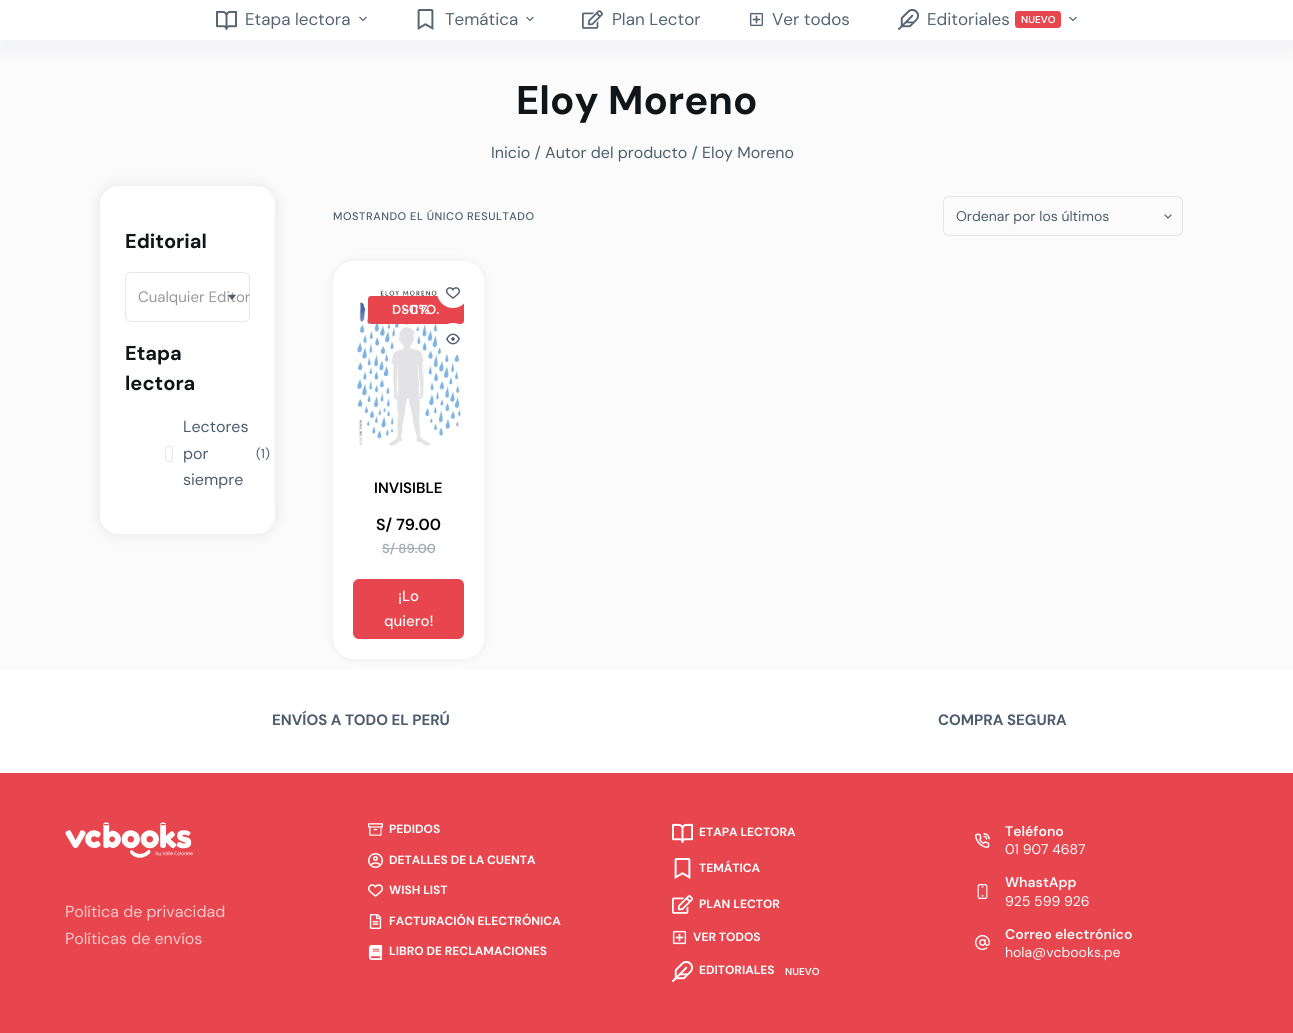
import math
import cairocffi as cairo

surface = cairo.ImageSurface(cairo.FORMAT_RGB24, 1293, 1033)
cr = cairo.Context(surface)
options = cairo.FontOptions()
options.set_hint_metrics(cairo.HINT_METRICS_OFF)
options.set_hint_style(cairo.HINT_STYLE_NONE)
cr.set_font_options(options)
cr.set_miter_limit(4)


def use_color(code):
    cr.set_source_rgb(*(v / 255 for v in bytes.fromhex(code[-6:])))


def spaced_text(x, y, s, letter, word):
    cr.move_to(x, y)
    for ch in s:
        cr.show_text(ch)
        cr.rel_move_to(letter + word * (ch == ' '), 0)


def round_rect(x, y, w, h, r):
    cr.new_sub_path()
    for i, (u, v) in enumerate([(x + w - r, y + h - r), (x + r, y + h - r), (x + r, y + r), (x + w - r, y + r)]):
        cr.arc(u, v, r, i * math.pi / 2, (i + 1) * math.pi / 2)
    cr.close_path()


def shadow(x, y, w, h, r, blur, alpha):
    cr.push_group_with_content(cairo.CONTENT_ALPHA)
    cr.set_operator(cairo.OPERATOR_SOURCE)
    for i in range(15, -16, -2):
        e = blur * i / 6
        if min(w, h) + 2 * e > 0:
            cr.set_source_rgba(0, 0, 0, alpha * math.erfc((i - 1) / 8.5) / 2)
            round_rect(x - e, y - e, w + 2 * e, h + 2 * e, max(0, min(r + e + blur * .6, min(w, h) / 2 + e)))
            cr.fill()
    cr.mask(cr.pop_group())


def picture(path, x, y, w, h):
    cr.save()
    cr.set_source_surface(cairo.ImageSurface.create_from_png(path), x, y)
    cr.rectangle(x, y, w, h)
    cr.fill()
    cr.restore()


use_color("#fbfbfc")
cr.paint()
use_color("#2c3e50")
shadow(0, 8, 1293, 42, 0, 10, 0.05)
use_color("#ffffff")
cr.rectangle(0, 0, 1293, 40)
cr.fill()
picture("img1.png", 216, 10, 21, 20)
cr.select_font_face("DM Sans")
cr.set_font_size(17)
use_color("#576471")
cr.move_to(245, 25)
cr.show_text("Etapa lectora")
picture("img2.png", 359, 16, 8, 6)
picture("img3.png", 417, 9, 17, 21)
cr.move_to(445, 25)
cr.show_text("Temática")
picture("img2.png", 526, 16, 8, 6)
picture("img4.png", 582, 10, 21, 19)
cr.move_to(612, 25)
cr.show_text("Plan Lector")
picture("img5.png", 749, 12, 15, 15)
cr.move_to(772, 25)
cr.show_text("Ver todos")
picture("img6.png", 898, 9, 21, 21)
cr.move_to(927, 25)
cr.show_text("Editoriales")
use_color("#e7464e")
round_rect(1015, 11, 46, 17, 3)
cr.fill()
cr.select_font_face("DM Sans SemiBold")
cr.set_font_size(10)
use_color("#fbfbfc")
cr.move_to(1021, 23)
cr.show_text("NUEVO")
picture("img2.png", 1069, 16, 8, 6)
cr.select_font_face("DM Sans", cairo.FONT_SLANT_NORMAL, cairo.FONT_WEIGHT_BOLD)
cr.set_font_size(40)
use_color("#111518")
cr.move_to(516, 114)
cr.show_text("Eloy Moreno")
cr.select_font_face("DM Sans")
cr.set_font_size(16)
use_color("#4d5d6d")
cr.move_to(491, 158)
cr.show_text("Inicio / Autor del producto / Eloy Moreno")
use_color("#000000")
shadow(100, 186, 175, 348, 19, 7, 0.1)
use_color("#ffffff")
round_rect(100, 186, 175, 348, 19)
cr.fill()
cr.select_font_face("DM Sans", cairo.FONT_SLANT_NORMAL, cairo.FONT_WEIGHT_BOLD)
cr.set_font_size(20)
use_color("#111518")
cr.move_to(125, 248)
cr.show_text("Editorial")
round_rect(125.5, 272.5, 124, 49, 5.5)
use_color("#e7e7e7")
cr.set_line_width(1)
cr.stroke()
cr.select_font_face("DM Sans")
cr.set_font_size(15)
use_color("#999999")
cr.move_to(138, 302)
cr.show_text("Cualquier Editor")
use_color("#4d5d6d")
cr.new_path()
cr.move_to(228, 295)
cr.line_to(236, 295)
cr.line_to(232, 300)
cr.close_path()
cr.fill()
cr.select_font_face("DM Sans", cairo.FONT_SLANT_NORMAL, cairo.FONT_WEIGHT_BOLD)
cr.set_font_size(20)
use_color("#111518")
cr.move_to(125, 360)
cr.show_text("Etapa")
cr.move_to(125, 390)
cr.show_text("lectora")
cr.select_font_face("DM Sans")
cr.set_font_size(16)
use_color("#4d5d6d")
cr.move_to(183, 432)
cr.show_text("Lectores")
round_rect(165.5, 446.5, 7, 15, 2.5)
use_color("#e7e7e7")
cr.stroke()
use_color("#4d5d6d")
cr.move_to(183, 459)
cr.show_text("por")
cr.move_to(183, 485)
cr.show_text("siempre")
cr.set_font_size(13)
cr.move_to(256, 458)
cr.show_text("(1)")
cr.select_font_face("DM Sans Medium")
cr.set_font_size(11)
spaced_text(333, 220, "MOSTRANDO EL ÚNICO RESULTADO", 0.55, 0)
picture("img7.png", 1164, 214, 8, 5)
round_rect(943.5, 196.5, 239, 39, 5.5)
use_color("#e7e7e7")
cr.stroke()
cr.select_font_face("DM Sans")
cr.set_font_size(14)
use_color("#4d5d6d")
cr.move_to(956, 221)
cr.show_text("Ordenar por los últimos")
use_color("#ffffff")
cr.rectangle(0, 669, 1293, 104)
cr.fill()
use_color("#000000")
shadow(333, 261, 151, 398, 21, 5, 0.07)
use_color("#ffffff")
round_rect(333, 261, 151, 398, 21)
cr.fill()
picture("img8.png", 357, 290, 104, 156)
use_color("#e7464e")
round_rect(368, 296, 96, 28, 3)
cr.fill()
cr.select_font_face("DM Sans SemiBold")
cr.set_font_size(13)
use_color("#fbfbfc")
cr.move_to(402, 314)
cr.show_text("-11%")
cr.move_to(392, 314)
cr.show_text("DSCTO.")
cr.set_font_size(15)
use_color("#000000")
cr.move_to(374, 493)
cr.show_text("INVISIBLE")
cr.set_font_size(16)
cr.move_to(376, 530)
cr.show_text("S/ 79.00")
cr.set_font_size(13)
use_color("#a6aeb6")
cr.move_to(382, 553)
cr.show_text("S/ 89.00")
cr.rectangle(382, 548, 53, 1)
cr.fill()
use_color("#ffffff")
cr.arc(453, 292, 16, 0, 2 * math.pi)
cr.fill()
picture("img9.png", 446, 287, 14, 12)
cr.arc(453, 339, 16, 0, 2 * math.pi)
cr.fill()
picture("img10.png", 446, 333, 14, 12)
use_color("#e7464e")
round_rect(353, 579, 111, 60, 6)
cr.fill()
cr.select_font_face("DM Sans Medium")
cr.set_font_size(15)
use_color("#fbfbfc")
cr.move_to(398, 601)
cr.show_text("¡Lo")
cr.move_to(384, 626)
cr.show_text("quiero!")
use_color("#e7464e")
cr.rectangle(0, 773, 1293, 260)
cr.fill()
cr.select_font_face("DM Sans", cairo.FONT_SLANT_NORMAL, cairo.FONT_WEIGHT_BOLD)
use_color("#4d5d6d")
cr.move_to(272, 725)
cr.show_text("ENVÍOS A TODO EL PERÚ")
cr.move_to(938, 725)
cr.show_text("COMPRA SEGURA")
picture("img11.png", 65, 822, 128, 36)
cr.select_font_face("DM Sans")
cr.set_font_size(16)
use_color("#f8c8ca")
cr.move_to(65, 917)
cr.show_text("Política de privacidad")
cr.move_to(65, 944)
cr.show_text("Políticas de envíos")
picture("img12.png", 368, 823, 15, 13)
cr.select_font_face("DM Sans", cairo.FONT_SLANT_NORMAL, cairo.FONT_WEIGHT_BOLD)
cr.set_font_size(12)
use_color("#fbfbfc")
cr.move_to(389, 833)
cr.show_text("PEDIDOS")
picture("img13.png", 368, 853, 15, 15)
cr.move_to(389, 864)
cr.show_text("DETALLES DE LA CUENTA")
picture("img14.png", 368, 884, 15, 13)
cr.move_to(389, 894)
cr.show_text("WISH LIST")
picture("img15.png", 369, 914, 13, 15)
cr.move_to(389, 925)
cr.show_text("FACTURACIÓN ELECTRÓNICA")
picture("img16.png", 368, 945, 15, 15)
cr.move_to(389, 955)
cr.show_text("LIBRO DE RECLAMACIONES")
picture("img17.png", 672, 823, 21, 20)
cr.move_to(699, 836)
cr.show_text("ETAPA LECTORA")
picture("img18.png", 674, 858, 17, 21)
cr.move_to(699, 872)
cr.show_text("TEMÁTICA")
picture("img19.png", 672, 895, 21, 19)
cr.move_to(699, 908)
cr.show_text("PLAN LECTOR")
picture("img20.png", 672, 930, 15, 15)
cr.move_to(693, 941)
cr.show_text("VER TODOS")
picture("img21.png", 672, 961, 21, 21)
cr.move_to(699, 974)
cr.show_text("EDITORIALES")
cr.select_font_face("DM Sans SemiBold")
cr.set_font_size(10)
cr.move_to(785, 975)
cr.show_text("NUEVO")
picture("img22.png", 975, 833, 15, 15)
cr.set_font_size(14)
cr.move_to(1005, 836)
cr.show_text("Teléfono")
cr.select_font_face("DM Sans")
cr.move_to(1005, 854)
cr.show_text("01 907 4687")
picture("img23.png", 977, 884, 11, 15)
cr.select_font_face("DM Sans SemiBold")
cr.move_to(1005, 887)
cr.show_text("WhastApp")
cr.select_font_face("DM Sans")
cr.move_to(1005, 906)
cr.show_text("925 599 926")
picture("img24.png", 975, 935, 15, 15)
cr.select_font_face("DM Sans SemiBold")
cr.move_to(1005, 939)
cr.show_text("Correo electrónico")
cr.select_font_face("DM Sans")
cr.move_to(1005, 957)
cr.show_text("hola@vcbooks.pe")
surface.write_to_png("result.png")
